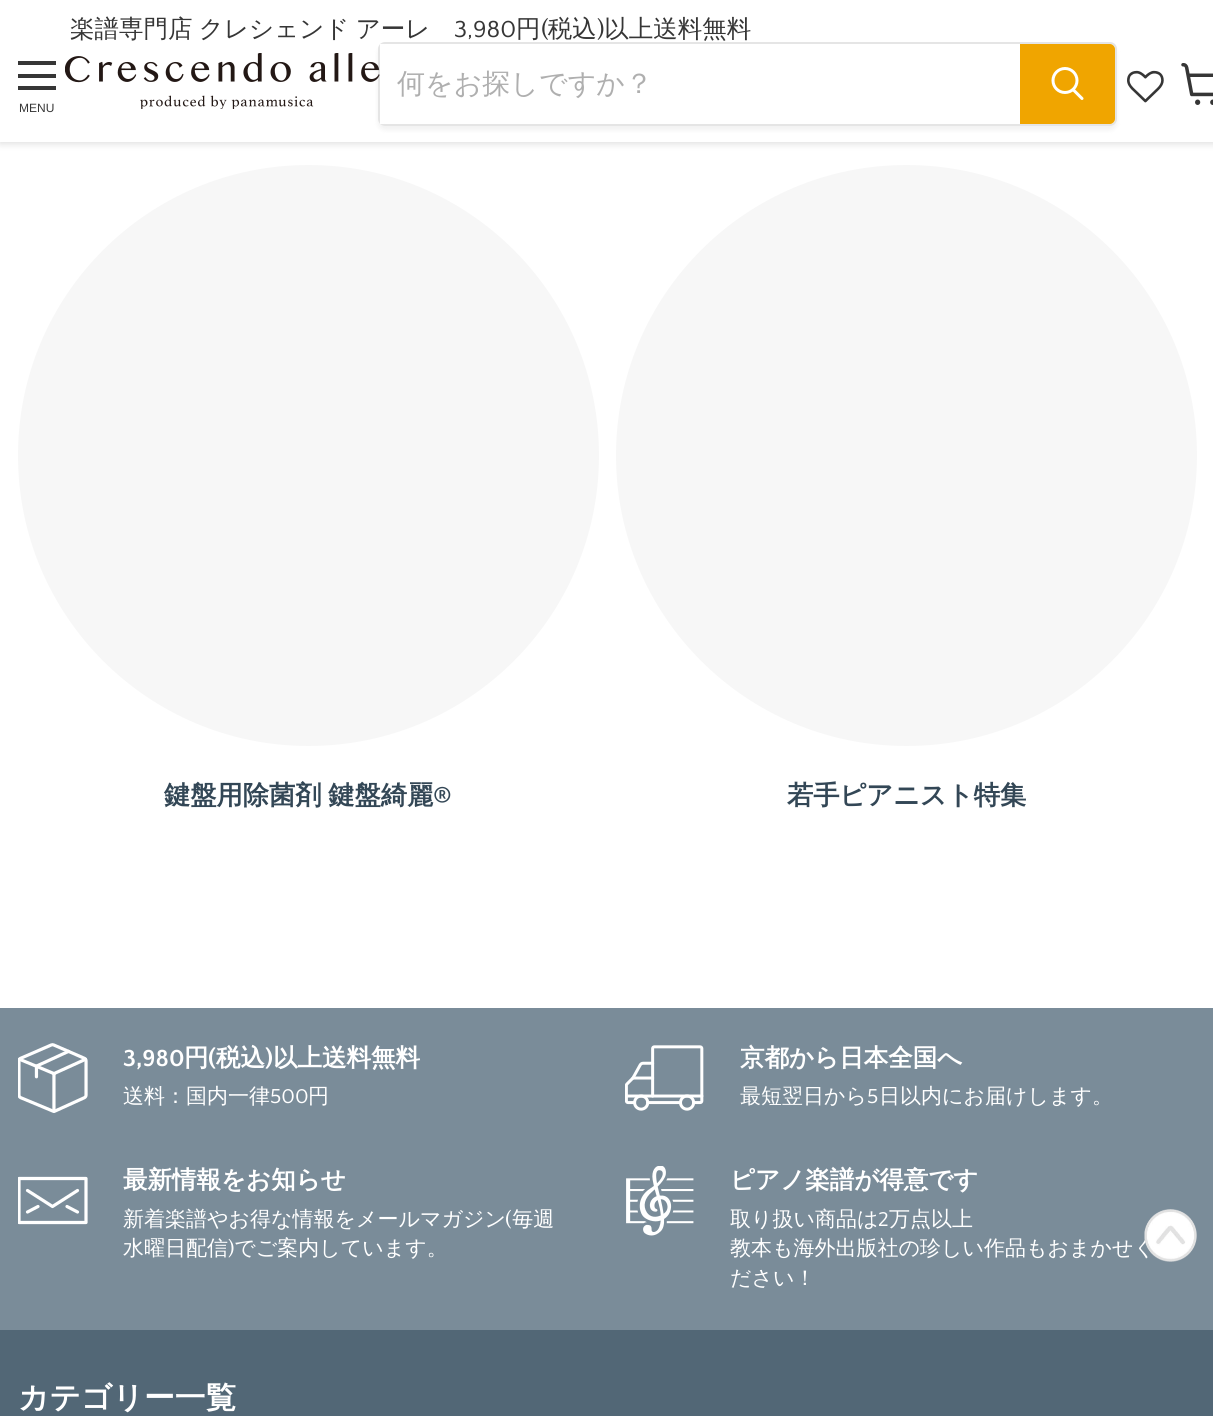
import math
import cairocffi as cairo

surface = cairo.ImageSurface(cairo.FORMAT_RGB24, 1213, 1416)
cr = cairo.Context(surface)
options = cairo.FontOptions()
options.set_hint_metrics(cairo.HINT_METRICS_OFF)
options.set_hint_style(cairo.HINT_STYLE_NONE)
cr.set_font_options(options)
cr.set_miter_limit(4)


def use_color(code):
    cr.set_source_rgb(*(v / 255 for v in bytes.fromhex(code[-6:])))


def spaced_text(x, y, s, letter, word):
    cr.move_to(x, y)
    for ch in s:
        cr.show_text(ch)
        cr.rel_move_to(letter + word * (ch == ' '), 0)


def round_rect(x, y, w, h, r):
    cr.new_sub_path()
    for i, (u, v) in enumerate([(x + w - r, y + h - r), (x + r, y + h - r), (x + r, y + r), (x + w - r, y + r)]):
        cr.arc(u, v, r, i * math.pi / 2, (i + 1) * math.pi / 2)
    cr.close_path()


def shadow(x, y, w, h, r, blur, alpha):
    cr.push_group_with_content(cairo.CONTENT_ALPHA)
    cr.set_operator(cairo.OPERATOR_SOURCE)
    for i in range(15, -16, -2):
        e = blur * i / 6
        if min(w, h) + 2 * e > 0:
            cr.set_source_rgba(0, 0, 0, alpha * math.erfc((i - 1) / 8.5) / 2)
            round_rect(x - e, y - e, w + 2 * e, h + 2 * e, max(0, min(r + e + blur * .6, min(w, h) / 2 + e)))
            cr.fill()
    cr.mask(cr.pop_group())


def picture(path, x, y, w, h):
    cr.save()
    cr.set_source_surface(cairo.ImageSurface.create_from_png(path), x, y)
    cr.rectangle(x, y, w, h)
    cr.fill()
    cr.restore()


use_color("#ffffff")
cr.paint()
use_color("#808080")
shadow(0, 0, 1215, 144, 0, 3.5, 0.25)
use_color("#ffffff")
cr.rectangle(0, 0, 1213, 142)
cr.fill()
cr.select_font_face("WenQuanYi Zen Hei Medium")
cr.set_font_size(24.5)
use_color("#363636")
spaced_text(70, 37, "楽譜専門店 クレシェンド アーレ", 0, -1)
cr.move_to(516, 37)
cr.show_text("円 税込 以上送料無料")
cr.select_font_face("Quattrocento Sans")
cr.move_to(454, 37)
cr.show_text("3,980")
cr.move_to(541, 37)
cr.show_text("(")
cr.move_to(597, 37)
cr.show_text(")")
picture("img1.png", 65, 53, 315, 56)
cr.save()
cr.set_fill_rule(cairo.FILL_RULE_EVEN_ODD)
cr.new_path()
cr.move_to(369, 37)
cr.line_to(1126, 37)
cr.line_to(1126, 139)
cr.line_to(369, 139)
cr.close_path()
cr.move_to(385, 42)
cr.line_to(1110, 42)
cr.curve_to(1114, 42, 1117, 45, 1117, 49)
cr.line_to(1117, 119)
cr.curve_to(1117, 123, 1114, 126, 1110, 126)
cr.line_to(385, 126)
cr.curve_to(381, 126, 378, 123, 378, 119)
cr.line_to(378, 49)
cr.curve_to(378, 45, 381, 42, 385, 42)
cr.close_path()
cr.clip()
use_color("#808080")
shadow(378, 46, 739, 84, 7, 2.5, 0.11)
cr.restore()
round_rect(379, 43, 737, 82, 6)
cr.set_source_rgba(0.502, 0.502, 0.502, 0.2)
cr.stroke()
use_color("#ffffff")
cr.rectangle(380, 44, 4, 80)
cr.fill()
cr.select_font_face("WenQuanYi Zen Hei Medium")
cr.set_font_size(28)
use_color("#afafaf")
cr.move_to(397, 93)
cr.show_text("何をお探しですか？")
use_color("#f0a500")
cr.new_path()
cr.move_to(1021, 45)
cr.line_to(1110, 45)
cr.curve_to(1112, 45, 1114, 47, 1114, 49)
cr.line_to(1114, 119)
cr.curve_to(1114, 121, 1112, 123, 1110, 123)
cr.line_to(1021, 123)
cr.close_path()
cr.fill_preserve()
cr.stroke()
cr.new_path()
cr.move_to(1082, 98.5)
cr.line_to(1073.5, 90)
use_color("#ffffff")
cr.set_line_width(3)
cr.set_line_cap(cairo.LINE_CAP_ROUND)
cr.stroke()
cr.arc(1065, 80.5, 12, 0, 2 * math.pi)
cr.set_line_cap(cairo.LINE_CAP_BUTT)
cr.stroke()
picture("img2.png", 1127, 70, 37, 33)
picture("img3.png", 1181, 63, 32, 42)
use_color("#363636")
cr.rectangle(18, 61, 38, 4)
cr.fill()
cr.rectangle(18, 74, 38, 4)
cr.fill()
cr.rectangle(18, 86, 38, 4)
cr.fill()
cr.select_font_face("Liberation Sans")
cr.set_font_size(12)
cr.move_to(19, 112)
cr.show_text("MENU")
use_color("#f7f7f7")
cr.new_path()
cr.arc(308.5, 455.5, 290.5, 0, 2 * math.pi)
cr.fill()
cr.select_font_face("WenQuanYi Zen Hei", cairo.FONT_SLANT_NORMAL, cairo.FONT_WEIGHT_BOLD)
cr.set_font_size(26.25)
use_color("#334756")
spaced_text(164, 804, "鍵盤用除菌剤 鍵盤綺麗", 0, -1)
cr.select_font_face("Quattrocento Sans", cairo.FONT_SLANT_NORMAL, cairo.FONT_WEIGHT_BOLD)
cr.move_to(433, 804)
cr.show_text("®")
use_color("#f7f7f7")
cr.new_path()
cr.arc(906.5, 455.5, 290.5, 0, 2 * math.pi)
cr.fill()
cr.select_font_face("WenQuanYi Zen Hei", cairo.FONT_SLANT_NORMAL, cairo.FONT_WEIGHT_BOLD)
use_color("#334756")
cr.move_to(787, 804)
cr.show_text("若手ピアニスト特集")
use_color("#7a8c99")
cr.rectangle(0, 1008, 1213, 322)
cr.fill()
picture("img4.png", 18, 1043, 70, 70)
cr.select_font_face("Quattrocento Sans", cairo.FONT_SLANT_NORMAL, cairo.FONT_WEIGHT_BOLD)
cr.set_font_size(24.5)
use_color("#ffffff")
cr.move_to(123, 1066)
cr.show_text("3,980")
cr.select_font_face("WenQuanYi Zen Hei", cairo.FONT_SLANT_NORMAL, cairo.FONT_WEIGHT_BOLD)
cr.move_to(184, 1066)
cr.show_text("円")
cr.select_font_face("Quattrocento Sans", cairo.FONT_SLANT_NORMAL, cairo.FONT_WEIGHT_BOLD)
cr.move_to(208, 1066)
cr.show_text("(")
cr.select_font_face("WenQuanYi Zen Hei", cairo.FONT_SLANT_NORMAL, cairo.FONT_WEIGHT_BOLD)
cr.move_to(216, 1066)
cr.show_text("税込")
cr.select_font_face("Quattrocento Sans", cairo.FONT_SLANT_NORMAL, cairo.FONT_WEIGHT_BOLD)
cr.move_to(265, 1066)
cr.show_text(")")
cr.select_font_face("WenQuanYi Zen Hei", cairo.FONT_SLANT_NORMAL, cairo.FONT_WEIGHT_BOLD)
cr.move_to(273, 1066)
cr.show_text("以上送料無料")
cr.select_font_face("WenQuanYi Zen Hei Medium")
cr.set_font_size(21)
cr.move_to(123, 1103)
cr.show_text("送料：国内一律")
cr.select_font_face("Quattrocento Sans")
cr.move_to(270, 1103)
cr.show_text("500")
cr.select_font_face("WenQuanYi Zen Hei Medium")
cr.move_to(308, 1103)
cr.show_text("円")
picture("img5.png", 625, 1045, 79, 66)
cr.select_font_face("WenQuanYi Zen Hei", cairo.FONT_SLANT_NORMAL, cairo.FONT_WEIGHT_BOLD)
cr.set_font_size(24.5)
cr.move_to(740, 1066)
cr.show_text("京都から日本全国へ")
cr.select_font_face("WenQuanYi Zen Hei Medium")
cr.set_font_size(21)
cr.move_to(740, 1103)
cr.show_text("最短翌日から")
cr.select_font_face("Quattrocento Sans")
cr.move_to(867, 1103)
cr.show_text("5")
cr.select_font_face("WenQuanYi Zen Hei Medium")
cr.move_to(879, 1103)
cr.show_text("日以内にお届けします。")
cr.save()
cr.rectangle(18, 1166, 70, 70)
cr.clip()
cr.new_path()
cr.move_to(19, 1178.5)
cr.line_to(86, 1178.5)
cr.line_to(86, 1222.5)
cr.line_to(19, 1222.5)
cr.close_path()
cr.set_line_width(3.2)
cr.set_line_cap(cairo.LINE_CAP_ROUND)
cr.set_line_join(cairo.LINE_JOIN_ROUND)
cr.stroke()
cr.restore()
cr.new_path()
cr.move_to(77.5, 1190.5)
cr.line_to(52.5, 1206.5)
cr.line_to(27.5, 1190.5)
cr.move_to(27.5, 1212)
cr.line_to(38, 1206.5)
cr.move_to(77.5, 1212)
cr.line_to(67, 1206.5)
cr.set_line_width(3.2)
cr.set_line_cap(cairo.LINE_CAP_ROUND)
cr.set_line_join(cairo.LINE_JOIN_ROUND)
cr.stroke()
cr.select_font_face("WenQuanYi Zen Hei", cairo.FONT_SLANT_NORMAL, cairo.FONT_WEIGHT_BOLD)
cr.set_font_size(24.5)
cr.move_to(123, 1188)
cr.show_text("最新情報をお知らせ")
cr.select_font_face("WenQuanYi Zen Hei Medium")
cr.set_font_size(21)
cr.move_to(123, 1226)
cr.show_text("新着楽譜やお得な情報をメールマガジン 毎週")
cr.select_font_face("Quattrocento Sans")
cr.move_to(505, 1226)
cr.show_text("(")
cr.select_font_face("WenQuanYi Zen Hei Medium")
cr.move_to(123, 1255)
cr.show_text("水曜日配信 でご案内しています。")
cr.select_font_face("Quattrocento Sans")
cr.move_to(228, 1255)
cr.show_text(")")
picture("img6.png", 626, 1166, 68, 70)
cr.select_font_face("WenQuanYi Zen Hei", cairo.FONT_SLANT_NORMAL, cairo.FONT_WEIGHT_BOLD)
cr.set_font_size(24.5)
cr.move_to(730, 1188)
cr.show_text("ピアノ楽譜が得意です")
cr.select_font_face("WenQuanYi Zen Hei Medium")
cr.set_font_size(21)
cr.move_to(730, 1226)
cr.show_text("取り扱い商品は")
cr.select_font_face("Quattrocento Sans")
cr.move_to(878, 1226)
cr.show_text("2")
cr.select_font_face("WenQuanYi Zen Hei Medium")
cr.move_to(889, 1226)
cr.show_text("万点以上")
cr.move_to(730, 1255)
cr.show_text("教本も海外出版社の珍しい作品もおまかせく")
cr.move_to(730, 1285)
cr.show_text("ださい！")
picture("img7.png", 1144, 1209, 53, 53)
use_color("#526776")
cr.rectangle(0, 1330, 1213, 86)
cr.fill()
cr.select_font_face("WenQuanYi Zen Hei", cairo.FONT_SLANT_NORMAL, cairo.FONT_WEIGHT_BOLD)
cr.set_font_size(30.75)
use_color("#ffffff")
cr.move_to(18, 1408)
cr.show_text("カテゴリー一覧")
surface.write_to_png("result.png")
